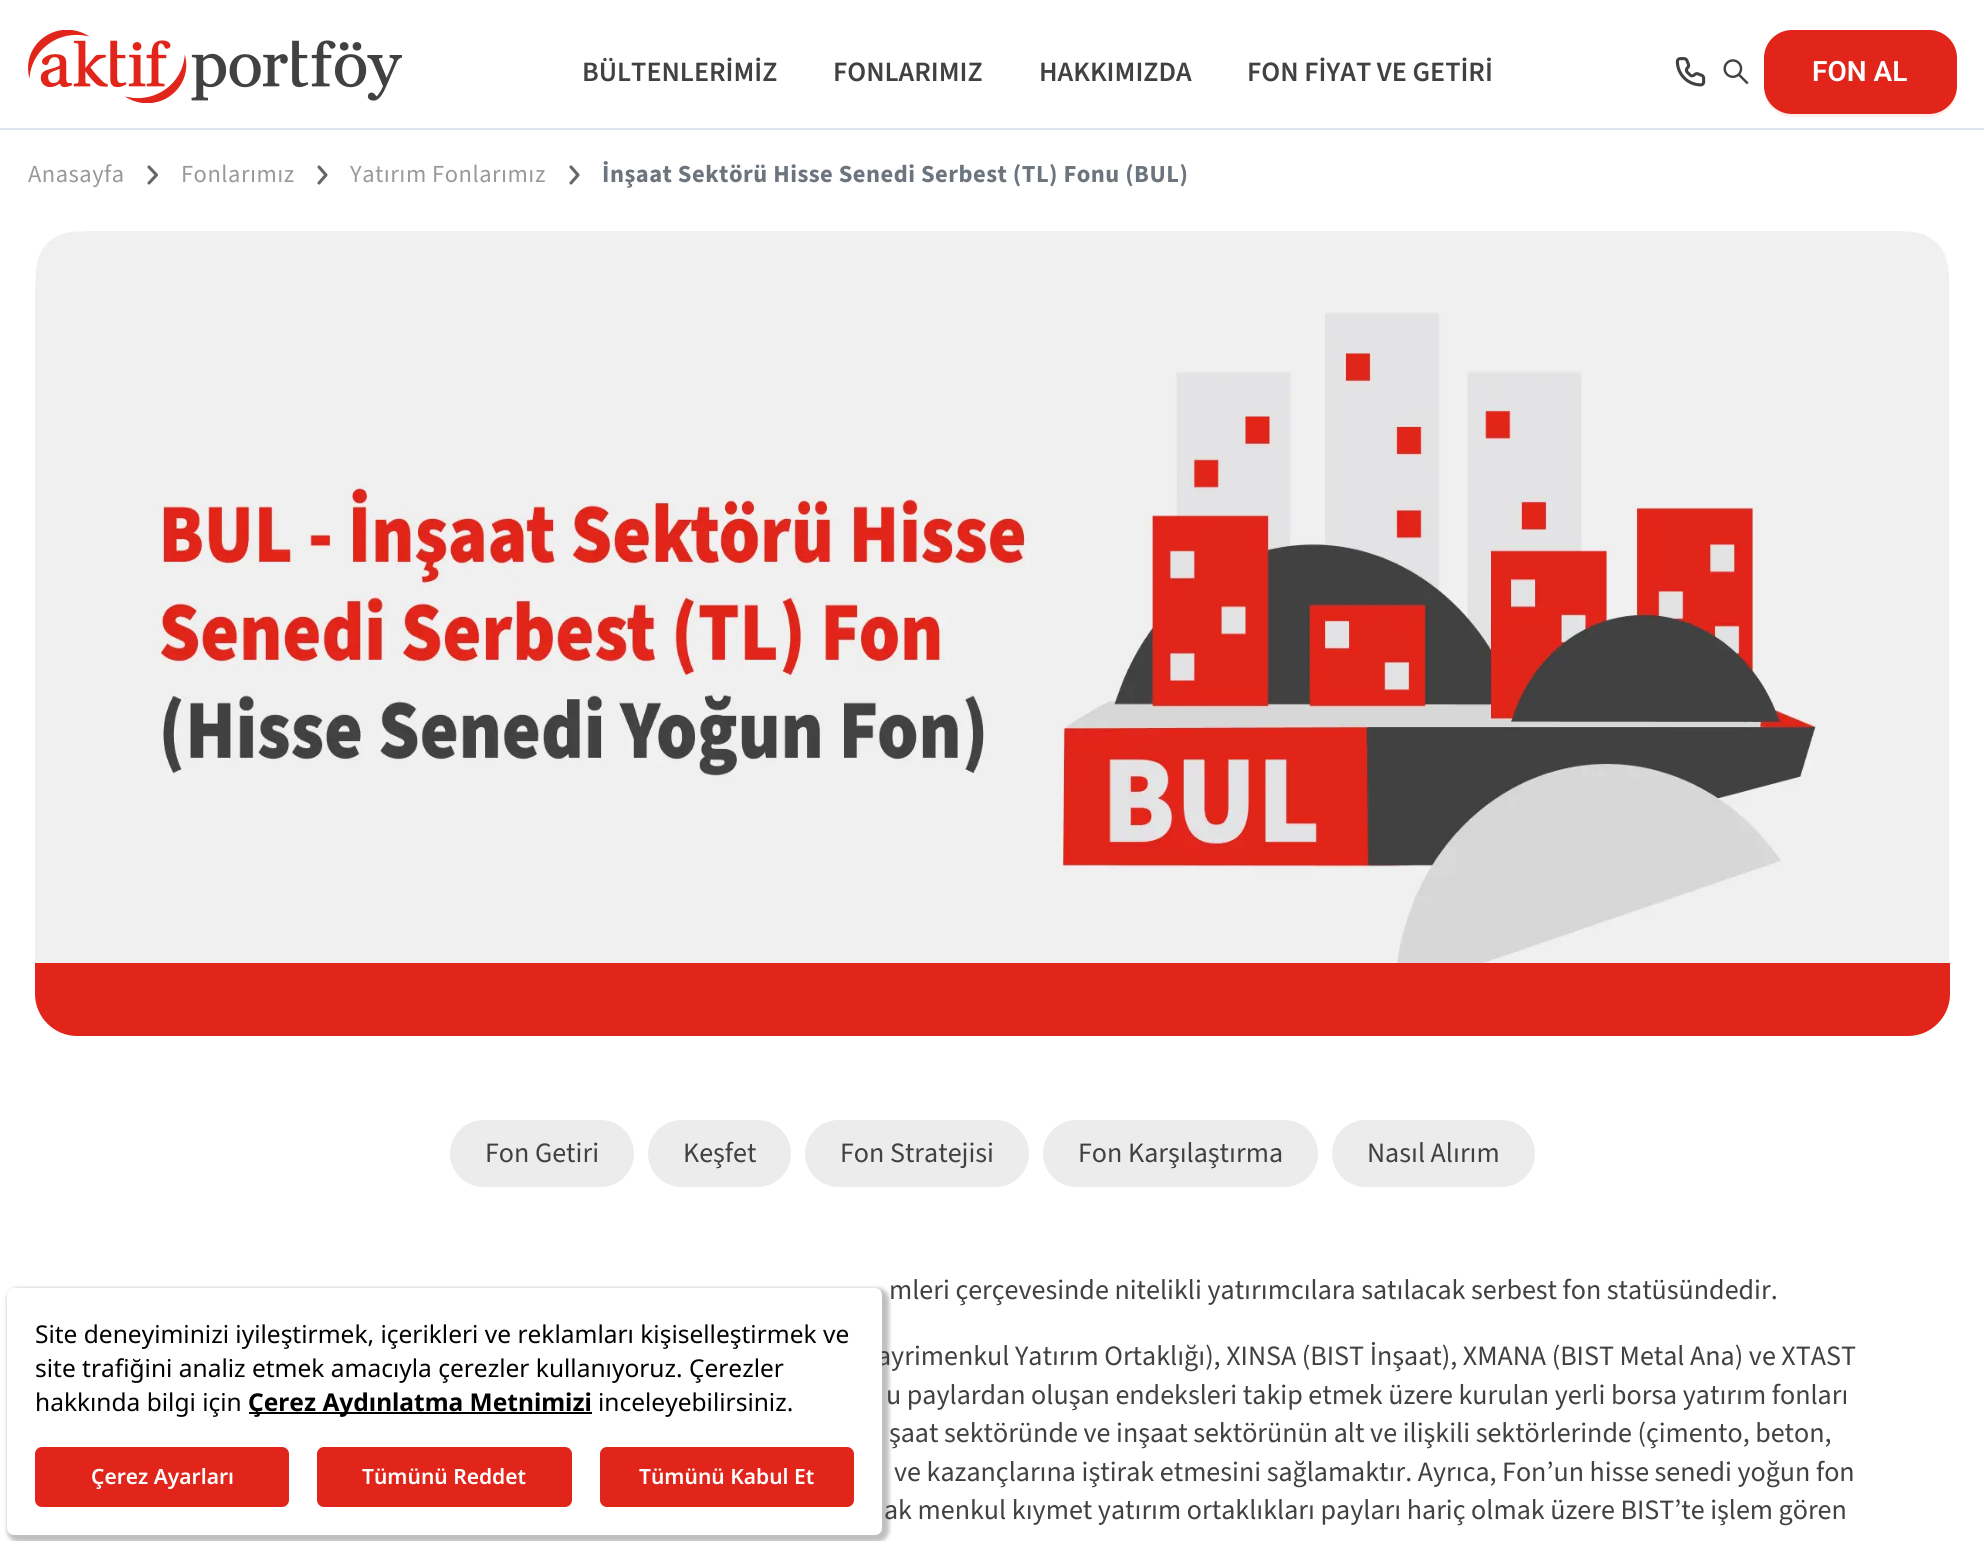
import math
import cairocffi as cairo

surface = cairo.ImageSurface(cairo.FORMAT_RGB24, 1984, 1541)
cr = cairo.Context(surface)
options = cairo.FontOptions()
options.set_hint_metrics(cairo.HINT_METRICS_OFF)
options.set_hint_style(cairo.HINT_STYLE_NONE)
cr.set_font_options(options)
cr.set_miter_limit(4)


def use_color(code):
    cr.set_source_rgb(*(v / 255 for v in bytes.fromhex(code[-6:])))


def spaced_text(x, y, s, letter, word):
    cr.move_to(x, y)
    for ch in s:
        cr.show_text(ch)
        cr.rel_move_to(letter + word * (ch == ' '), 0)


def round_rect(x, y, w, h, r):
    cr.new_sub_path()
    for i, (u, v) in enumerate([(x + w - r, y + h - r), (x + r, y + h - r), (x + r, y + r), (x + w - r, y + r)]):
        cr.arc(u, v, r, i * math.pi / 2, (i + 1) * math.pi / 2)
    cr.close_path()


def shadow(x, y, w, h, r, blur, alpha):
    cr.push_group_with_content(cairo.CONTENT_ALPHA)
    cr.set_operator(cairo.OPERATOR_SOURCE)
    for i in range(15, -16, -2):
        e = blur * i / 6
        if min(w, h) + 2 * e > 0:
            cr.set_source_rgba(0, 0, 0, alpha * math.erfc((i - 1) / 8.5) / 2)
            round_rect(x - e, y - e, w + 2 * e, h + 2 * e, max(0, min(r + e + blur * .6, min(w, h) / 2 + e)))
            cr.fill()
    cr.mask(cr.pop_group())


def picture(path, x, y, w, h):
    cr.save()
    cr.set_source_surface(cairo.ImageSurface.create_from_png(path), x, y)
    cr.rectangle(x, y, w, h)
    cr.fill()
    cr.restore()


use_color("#ffffff")
cr.paint()
picture("img1.png", 28, 30, 374, 73)
cr.select_font_face("Source Sans 3 SemiBold")
cr.set_font_size(28)
use_color("#414141")
cr.move_to(582, 81)
cr.show_text("BÜLTENLERİMİZ")
cr.move_to(833, 81)
cr.show_text("FONLARIMIZ")
cr.move_to(1039, 81)
cr.show_text("HAKKIMIZDA")
cr.move_to(1247, 81)
cr.show_text("FON FİYAT VE GETİRİ")
picture("img2.png", 1675, 57, 31, 30)
picture("img3.png", 1723, 59, 26, 26)
use_color("#ffefeb")
cr.new_path()
cr.move_to(1764, 86)
cr.line_to(1764, 89)
cr.curve_to(1764, 104, 1777, 117, 1792, 117)
cr.line_to(1929, 117)
cr.curve_to(1944, 117, 1957, 104, 1957, 89)
cr.line_to(1957, 61)
cr.line_to(1956, 55)
cr.line_to(1956, 86)
cr.curve_to(1956, 101, 1944, 114, 1928, 114)
cr.line_to(1792, 114)
cr.curve_to(1777, 114, 1764, 101, 1764, 86)
cr.close_path()
cr.fill()
use_color("#e1251b")
round_rect(1764, 30, 193, 84, 28)
cr.fill()
cr.select_font_face("Roboto SemiBold")
use_color("#ffffff")
cr.move_to(1812, 81)
cr.show_text("FON AL")
use_color("#dee5ed")
cr.rectangle(0, 128, 1984, 2)
cr.fill()
cr.select_font_face("Source Sans 3")
cr.set_font_size(24.5)
use_color("#999999")
spaced_text(28, 182, "Anasayfa", 0.5, 0)
cr.new_path()
cr.move_to(149, 183)
cr.line_to(156.5, 175)
cr.line_to(149, 167)
use_color("#666666")
cr.set_line_width(3.1)
cr.set_line_cap(cairo.LINE_CAP_ROUND)
cr.set_line_join(cairo.LINE_JOIN_ROUND)
cr.stroke()
use_color("#999999")
spaced_text(181, 182, "Fonlarımız", 0.5, 0)
cr.new_path()
cr.move_to(319, 183)
cr.line_to(326, 175)
cr.line_to(319, 167)
use_color("#666666")
cr.stroke()
use_color("#999999")
spaced_text(350, 182, "Yatırım Fonlarımız", 0.5, 0)
cr.new_path()
cr.move_to(571, 183)
cr.line_to(578, 175)
cr.line_to(571, 167)
use_color("#666666")
cr.stroke()
cr.select_font_face("Source Sans 3", cairo.FONT_SLANT_NORMAL, cairo.FONT_WEIGHT_BOLD)
use_color("#6c757d")
spaced_text(602, 182, "İnşaat Sektörü Hisse Senedi Serbest (TL) Fonu (BUL)", 0.5, 0)
use_color("#000000")
shadow(7, 1288, 882, 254, 11, 2, 0.25)
cr.select_font_face("Source Sans 3")
cr.set_font_size(28)
use_color("#414141")
cr.move_to(877, 1365)
cr.show_text("ayrimenkul Yatırım Ortaklığı), XINSA (BIST İnşaat), XMANA (BIST Metal Ana) ve XTAST")
use_color("#ffffff")
round_rect(7, 1288, 875, 247, 7)
cr.fill()
cr.select_font_face("Noto Sans")
cr.set_font_size(24.5)
use_color("#000000")
cr.move_to(35, 1343)
cr.show_text("Site deneyiminizi iyileştirmek, içerikleri ve reklamları kişiselleştirmek ve")
cr.move_to(35, 1377)
cr.show_text("site trafiğini analiz etmek amacıyla çerezler kullanıyoruz. Çerezler")
cr.move_to(35, 1411)
cr.show_text("hakkında bilgi için")
cr.rectangle(249, 1412, 343, 2)
cr.fill()
cr.select_font_face("Noto Sans", cairo.FONT_SLANT_NORMAL, cairo.FONT_WEIGHT_BOLD)
cr.move_to(248, 1411)
cr.show_text("Çerez Aydınlatma Metnimizi")
cr.select_font_face("Noto Sans")
cr.move_to(598, 1411)
cr.show_text("inceleyebilirsiniz.")
use_color("#e1251b")
round_rect(35, 1447, 254, 60, 7)
cr.fill()
cr.select_font_face("Noto Sans SemiBold")
cr.set_font_size(21)
use_color("#ffffff")
cr.move_to(91, 1484)
cr.show_text("Çerez Ayarları")
use_color("#e1251b")
round_rect(317, 1447, 255, 60, 7)
cr.fill()
use_color("#ffffff")
cr.move_to(362, 1484)
cr.show_text("Tümünü Reddet")
use_color("#e1251b")
round_rect(600, 1447, 254, 60, 7)
cr.fill()
use_color("#ffffff")
cr.move_to(639, 1484)
cr.show_text("Tümünü Kabul Et")
picture("img4.png", 35, 231, 1915, 805)
use_color("#e1251b")
cr.new_path()
cr.move_to(35, 963)
cr.line_to(1950, 963)
cr.line_to(1950, 994)
cr.curve_to(1950, 1017, 1931, 1036, 1908, 1036)
cr.line_to(77, 1036)
cr.curve_to(54, 1036, 35, 1017, 35, 994)
cr.close_path()
cr.fill()
use_color("#ececec")
round_rect(450, 1120, 184, 67, 33.5)
cr.fill()
cr.select_font_face("Source Sans 3")
cr.set_font_size(28)
use_color("#414141")
cr.move_to(485, 1162)
cr.show_text("Fon Getiri")
use_color("#ececec")
round_rect(648, 1120, 143, 67, 33.5)
cr.fill()
use_color("#414141")
cr.move_to(683, 1162)
cr.show_text("Keşfet")
use_color("#ececec")
round_rect(805, 1120, 224, 67, 33.5)
cr.fill()
use_color("#414141")
cr.move_to(840, 1162)
cr.show_text("Fon Stratejisi")
use_color("#ececec")
round_rect(1043, 1120, 275, 67, 33.5)
cr.fill()
use_color("#414141")
cr.move_to(1078, 1162)
cr.show_text("Fon Karşılaştırma")
use_color("#ececec")
round_rect(1332, 1120, 203, 67, 33.5)
cr.fill()
use_color("#414141")
cr.move_to(1367, 1162)
cr.show_text("Nasıl Alırım")
cr.move_to(889, 1299)
cr.show_text("mleri çerçevesinde nitelikli yatırımcılara satılacak serbest fon statüsündedir.")
cr.move_to(886, 1404)
cr.show_text("u paylardan oluşan endeksleri takip etmek üzere kurulan yerli borsa yatırım fonları")
cr.move_to(889, 1442)
cr.show_text("şaat sektöründe ve inşaat sektörünün alt ve ilişkili sektörlerinde (çimento, beton,")
cr.move_to(894, 1481)
cr.show_text("ve kazançlarına iştirak etmesini sağlamaktır. Ayrıca, Fon’un hisse senedi yoğun fon")
cr.move_to(884, 1519)
cr.show_text("ak menkul kıymet yatırım ortaklıkları payları hariç olmak üzere BIST’te işlem gören")
surface.write_to_png("result.png")
